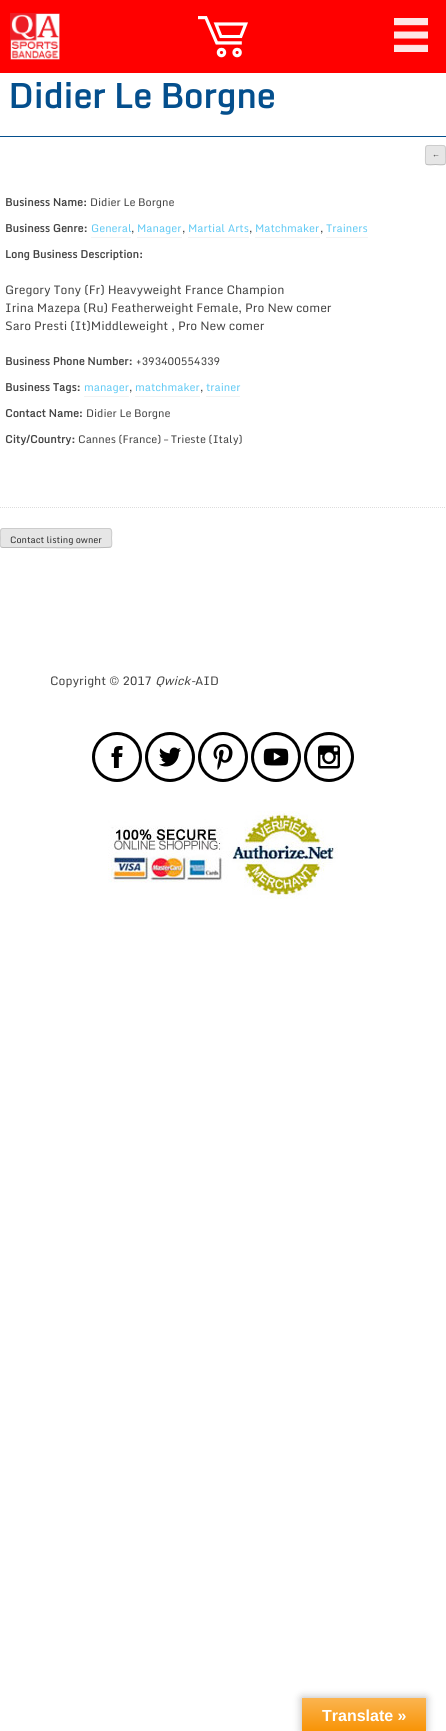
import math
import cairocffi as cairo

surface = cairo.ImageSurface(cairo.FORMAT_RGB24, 446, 1731)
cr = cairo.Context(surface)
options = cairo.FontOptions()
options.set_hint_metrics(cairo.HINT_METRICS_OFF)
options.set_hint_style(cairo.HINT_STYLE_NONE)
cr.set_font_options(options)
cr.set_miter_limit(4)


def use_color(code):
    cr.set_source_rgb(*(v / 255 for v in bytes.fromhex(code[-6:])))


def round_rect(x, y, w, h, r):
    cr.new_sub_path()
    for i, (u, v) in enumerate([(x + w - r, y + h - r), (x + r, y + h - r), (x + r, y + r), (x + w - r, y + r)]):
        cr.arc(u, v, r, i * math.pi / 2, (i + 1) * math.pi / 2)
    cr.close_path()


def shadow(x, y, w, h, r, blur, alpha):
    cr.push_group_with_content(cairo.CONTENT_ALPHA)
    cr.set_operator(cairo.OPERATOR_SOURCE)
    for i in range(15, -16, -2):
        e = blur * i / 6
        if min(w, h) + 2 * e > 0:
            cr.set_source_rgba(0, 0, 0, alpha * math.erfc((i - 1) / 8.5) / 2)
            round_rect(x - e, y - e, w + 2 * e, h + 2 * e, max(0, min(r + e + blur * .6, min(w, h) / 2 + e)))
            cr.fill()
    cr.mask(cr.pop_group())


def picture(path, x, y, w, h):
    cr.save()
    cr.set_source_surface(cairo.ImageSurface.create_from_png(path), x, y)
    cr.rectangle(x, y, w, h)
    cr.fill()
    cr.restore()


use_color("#ffffff")
cr.paint()
use_color("#ff0000")
cr.rectangle(0, 0, 446, 73)
cr.fill()
picture("img1.png", 10, 13, 50, 47)
picture("img2.png", 198, 16, 50, 42)
picture("img3.png", 394, 18, 34, 34)
use_color("#044f8d")
cr.rectangle(0, 136, 446, 1)
cr.fill()
cr.select_font_face("Monda", cairo.FONT_SLANT_NORMAL, cairo.FONT_WEIGHT_BOLD)
cr.set_font_size(34)
cr.move_to(8, 108)
cr.show_text("Didier Le Borgne")
use_color("#e6e6e6")
round_rect(425, 145, 21, 20, 3)
cr.fill()
cr.new_path()
cr.move_to(445, 164)
cr.curve_to(443.5, 165.5, 437.5, 164.5, 435.5, 164.5)
cr.curve_to(433.5, 164.5, 427.5, 165.5, 426, 164)
use_color("#bbbbbb")
cr.set_line_width(1)
cr.stroke()
cr.new_path()
cr.move_to(426, 164)
cr.curve_to(425, 162.5, 425.5, 157, 425.5, 155)
cr.curve_to(425.5, 144, 424.5, 145.5, 435.5, 145.5)
cr.curve_to(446.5, 145.5, 445.5, 144, 445.5, 155)
cr.curve_to(445.5, 157, 446, 162.5, 445, 164)
use_color("#cccccc")
cr.stroke()
cr.select_font_face("Liberation Serif")
cr.set_font_size(8)
use_color("#2e2e2e")
cr.move_to(432, 157)
cr.show_text("←")
cr.select_font_face("Monda", cairo.FONT_SLANT_NORMAL, cairo.FONT_WEIGHT_BOLD)
cr.set_font_size(10.75)
use_color("#444444")
cr.move_to(5, 206)
cr.show_text("Business Name:")
cr.select_font_face("Monda")
cr.move_to(90, 206)
cr.show_text("Didier Le Borgne")
cr.select_font_face("Monda", cairo.FONT_SLANT_NORMAL, cairo.FONT_WEIGHT_BOLD)
cr.move_to(5, 232)
cr.show_text("Business Genre:")
cr.select_font_face("Monda")
use_color("#62caf4")
cr.move_to(91, 232)
cr.show_text("General")
use_color("#444444")
cr.move_to(131, 232)
cr.show_text(",")
use_color("#f3f3f3")
cr.rectangle(91, 237, 40, 1)
cr.fill()
use_color("#62caf4")
cr.move_to(137, 232)
cr.show_text("Manager")
use_color("#444444")
cr.move_to(182, 232)
cr.show_text(",")
use_color("#f3f3f3")
cr.rectangle(137, 237, 45, 1)
cr.fill()
use_color("#62caf4")
cr.move_to(188, 232)
cr.show_text("Martial Arts")
use_color("#444444")
cr.move_to(249, 232)
cr.show_text(",")
use_color("#f3f3f3")
cr.rectangle(188, 237, 61, 1)
cr.fill()
use_color("#62caf4")
cr.move_to(255, 232)
cr.show_text("Matchmaker")
use_color("#444444")
cr.move_to(320, 232)
cr.show_text(",")
use_color("#f3f3f3")
cr.rectangle(255, 237, 65, 1)
cr.fill()
cr.rectangle(326, 237, 42, 1)
cr.fill()
use_color("#62caf4")
cr.move_to(326, 232)
cr.show_text("Trainers")
cr.select_font_face("Monda", cairo.FONT_SLANT_NORMAL, cairo.FONT_WEIGHT_BOLD)
use_color("#444444")
cr.move_to(5, 258)
cr.show_text("Long Business Description:")
cr.select_font_face("Monda")
cr.set_font_size(12)
cr.move_to(5, 294)
cr.show_text("Gregory Tony (Fr) Heavyweight France Champion")
cr.move_to(5, 312)
cr.show_text("Irina Mazepa (Ru) Featherweight Female, Pro New comer")
cr.move_to(5, 330)
cr.show_text("Saro Presti (It)Middleweight , Pro New comer")
cr.select_font_face("Monda", cairo.FONT_SLANT_NORMAL, cairo.FONT_WEIGHT_BOLD)
cr.set_font_size(10.75)
cr.move_to(5, 365)
cr.show_text("Business Phone Number:")
cr.select_font_face("Monda")
cr.move_to(136, 365)
cr.show_text("+393400554339")
cr.select_font_face("Monda", cairo.FONT_SLANT_NORMAL, cairo.FONT_WEIGHT_BOLD)
cr.move_to(5, 391)
cr.show_text("Business Tags:")
cr.select_font_face("Monda")
use_color("#62caf4")
cr.move_to(84, 391)
cr.show_text("manager")
use_color("#444444")
cr.move_to(129, 391)
cr.show_text(",")
use_color("#f3f3f3")
cr.rectangle(84, 396, 45, 1)
cr.fill()
use_color("#62caf4")
cr.move_to(135, 391)
cr.show_text("matchmaker")
use_color("#444444")
cr.move_to(200, 391)
cr.show_text(",")
use_color("#f3f3f3")
cr.rectangle(135, 396, 65, 1)
cr.fill()
cr.rectangle(206, 396, 34, 1)
cr.fill()
use_color("#62caf4")
cr.move_to(206, 391)
cr.show_text("trainer")
cr.select_font_face("Monda", cairo.FONT_SLANT_NORMAL, cairo.FONT_WEIGHT_BOLD)
use_color("#444444")
cr.move_to(5, 417)
cr.show_text("Contact Name:")
cr.select_font_face("Monda")
cr.move_to(86, 417)
cr.show_text("Didier Le Borgne")
cr.select_font_face("Monda", cairo.FONT_SLANT_NORMAL, cairo.FONT_WEIGHT_BOLD)
cr.move_to(5, 443)
cr.show_text("City/Country:")
cr.select_font_face("Monda")
cr.move_to(78, 443)
cr.show_text("Cannes (France) – Trieste (Italy)")
cr.new_path()
cr.move_to(0, 507.5)
cr.line_to(446, 507.5)
use_color("#dddddd")
cr.set_dash([1, 1])
cr.stroke()
use_color("#e6e6e6")
round_rect(0, 528, 112, 20, 3)
cr.fill()
cr.new_path()
cr.move_to(111, 547)
cr.line_to(110.5, 547)
cr.curve_to(108.5, 548.5, 29.5, 547.5, 20.5, 547.5)
cr.line_to(3, 547.5)
cr.line_to(1, 547)
use_color("#bbbbbb")
cr.set_dash([])
cr.stroke()
cr.new_path()
cr.move_to(1, 547)
cr.curve_to(-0.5, 545, 0.5, 540, 0.5, 538)
cr.curve_to(0.5, 536, -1, 528.5, 3, 528.5)
cr.line_to(109, 528.5)
cr.curve_to(113, 528.5, 111.5, 536, 111.5, 538)
cr.curve_to(111.5, 540, 112.5, 545, 111, 547)
use_color("#cccccc")
cr.stroke()
cr.set_font_size(9)
use_color("#2e2e2e")
cr.move_to(10, 543)
cr.show_text("Contact listing owner")
cr.set_font_size(12)
use_color("#444444")
cr.move_to(50, 685)
cr.show_text("Copyright © 2017")
cr.select_font_face("Monda", cairo.FONT_SLANT_ITALIC)
cr.move_to(155, 685)
cr.show_text("Qwick-")
cr.select_font_face("Monda")
cr.move_to(195, 685)
cr.show_text("AID")
picture("img4.png", 92, 732, 50, 50)
picture("img5.png", 145, 732, 50, 50)
picture("img6.png", 198, 732, 50, 50)
picture("img7.png", 251, 732, 50, 50)
picture("img8.png", 304, 732, 50, 50)
picture("img9.png", 108, 811, 230, 88)
use_color("#000000")
shadow(302, 1698, 124, 33, 0, 4.5, 0.3)
gradient = cairo.LinearGradient(364, 1698, 364, 1731)
gradient.add_color_stop_rgba(0, 0.984, 0.706, 0.314, 1)
gradient.add_color_stop_rgba(1, 0.973, 0.58, 0.024, 1)
cr.set_source(gradient)
cr.rectangle(302, 1698, 124, 33)
cr.fill()
cr.select_font_face("Liberation Sans", cairo.FONT_SLANT_NORMAL, cairo.FONT_WEIGHT_BOLD)
cr.set_font_size(16)
use_color("#ffffff")
cr.move_to(322, 1721)
cr.show_text("Translate »")
surface.write_to_png("result.png")
